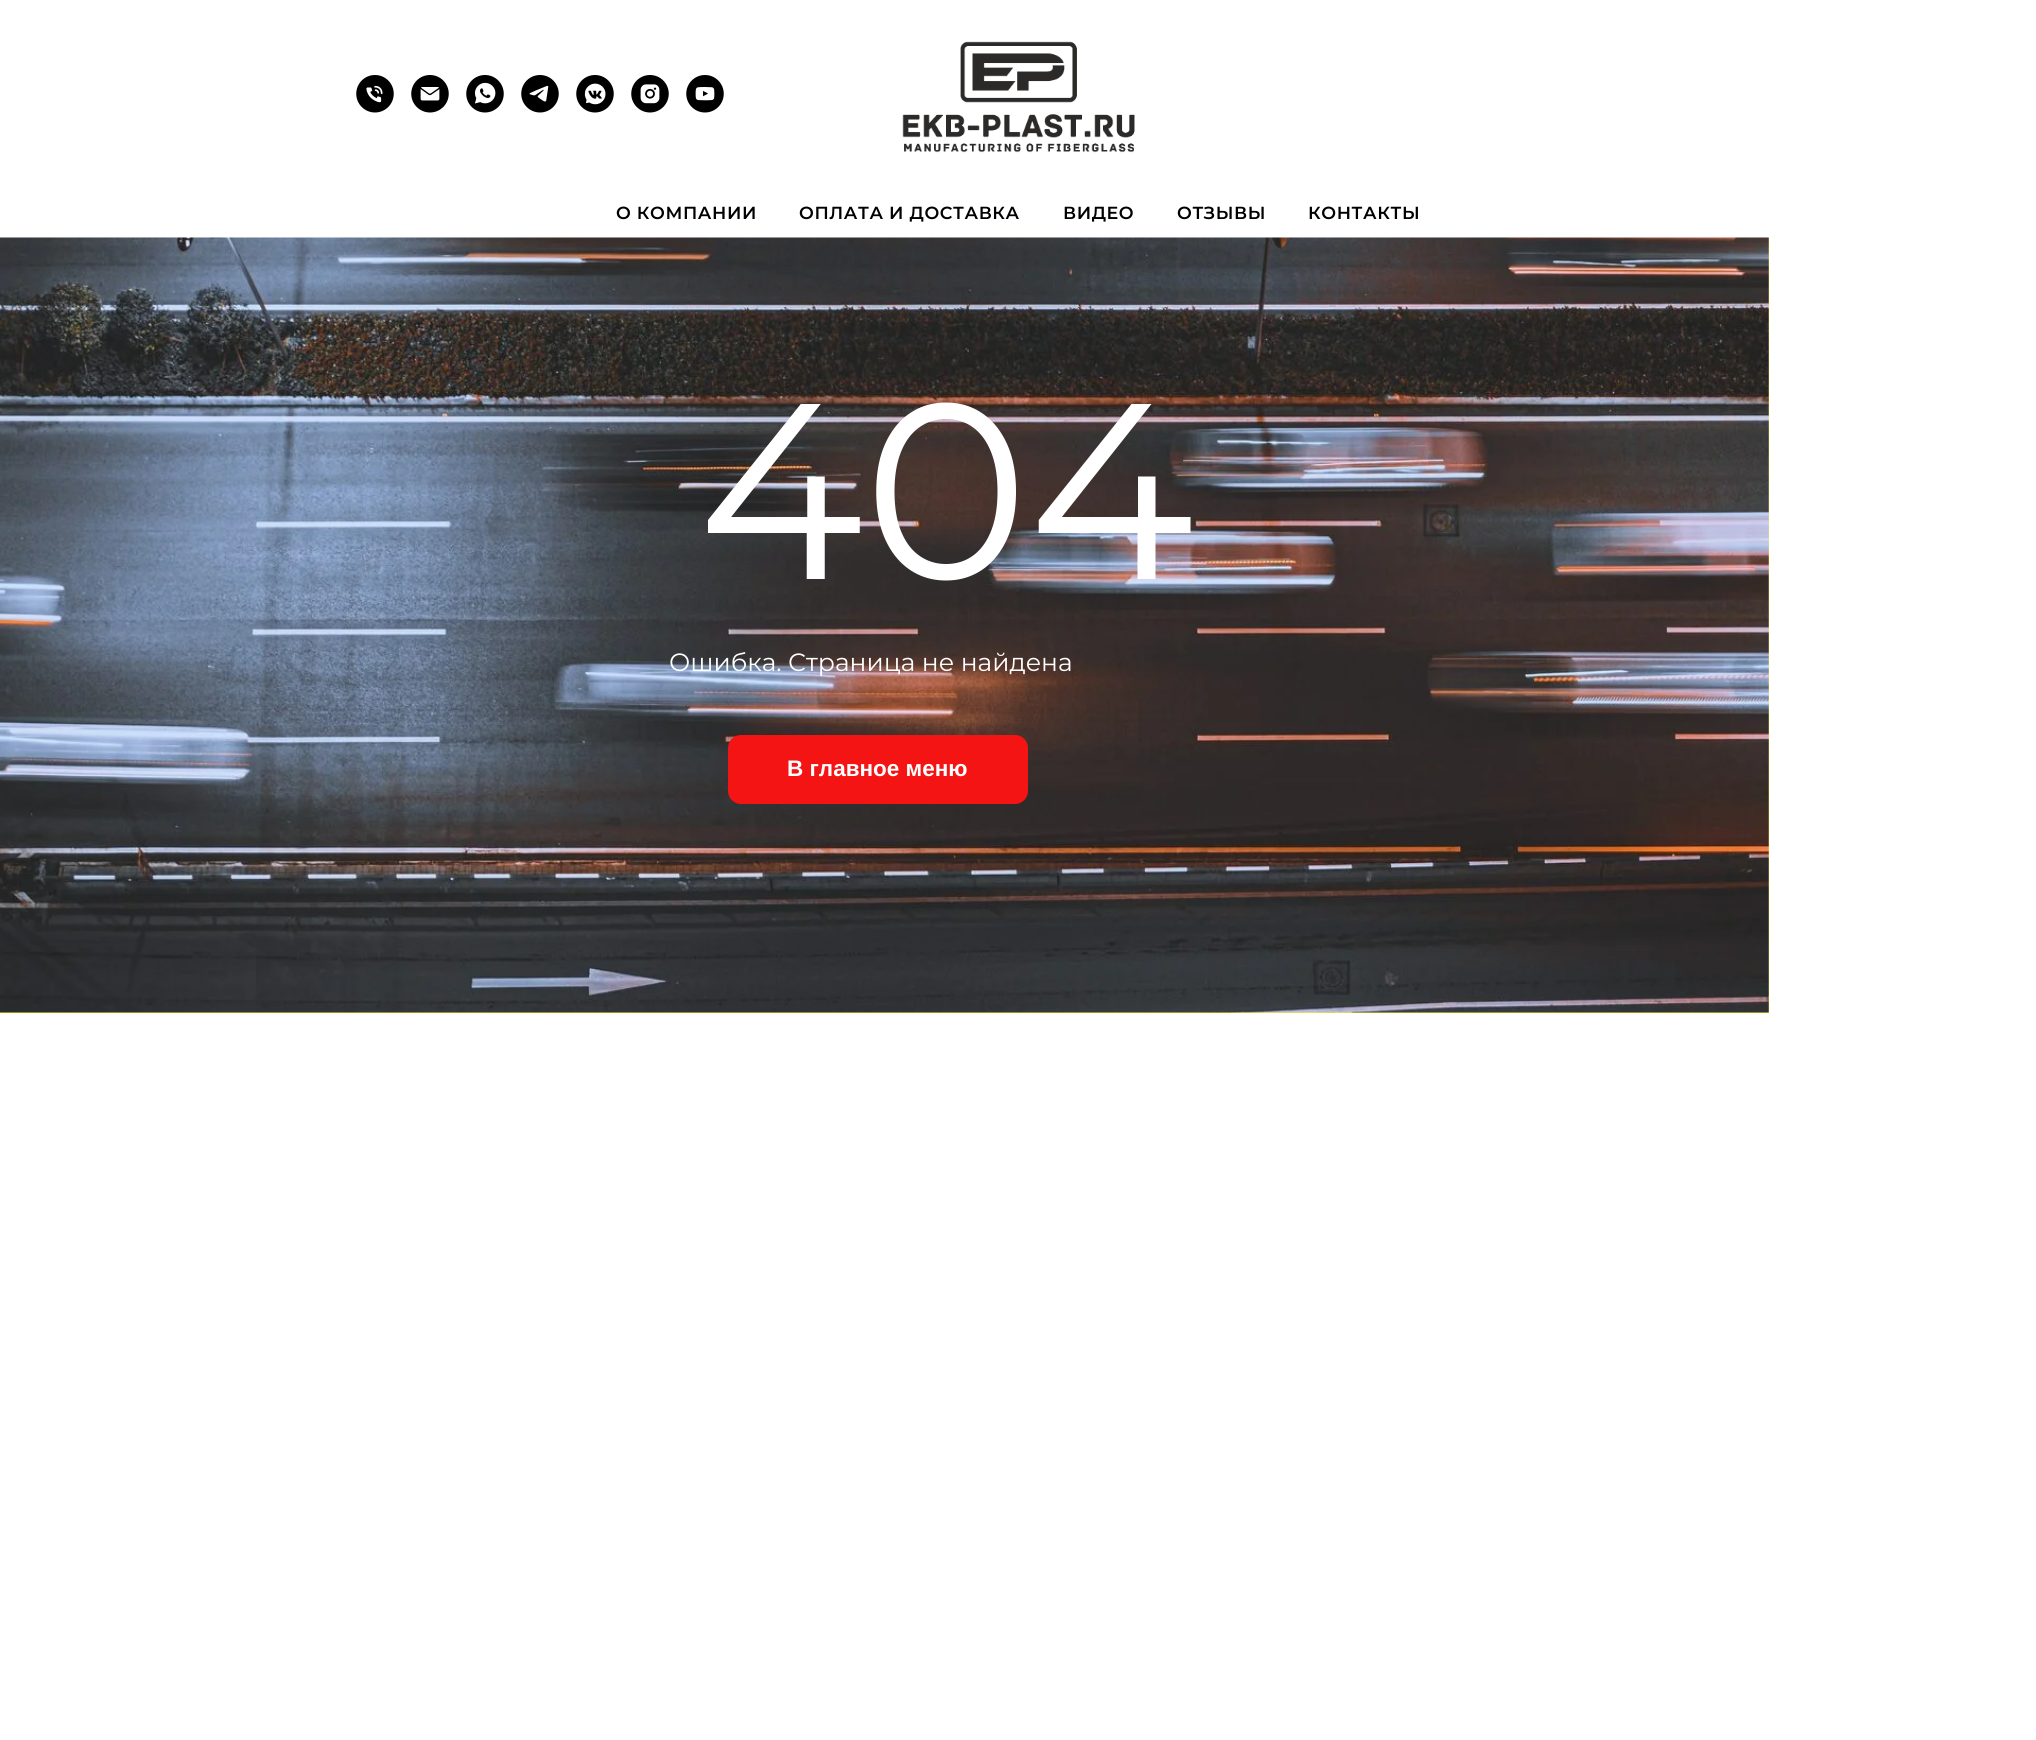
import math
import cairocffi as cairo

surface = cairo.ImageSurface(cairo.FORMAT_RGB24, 2036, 1740)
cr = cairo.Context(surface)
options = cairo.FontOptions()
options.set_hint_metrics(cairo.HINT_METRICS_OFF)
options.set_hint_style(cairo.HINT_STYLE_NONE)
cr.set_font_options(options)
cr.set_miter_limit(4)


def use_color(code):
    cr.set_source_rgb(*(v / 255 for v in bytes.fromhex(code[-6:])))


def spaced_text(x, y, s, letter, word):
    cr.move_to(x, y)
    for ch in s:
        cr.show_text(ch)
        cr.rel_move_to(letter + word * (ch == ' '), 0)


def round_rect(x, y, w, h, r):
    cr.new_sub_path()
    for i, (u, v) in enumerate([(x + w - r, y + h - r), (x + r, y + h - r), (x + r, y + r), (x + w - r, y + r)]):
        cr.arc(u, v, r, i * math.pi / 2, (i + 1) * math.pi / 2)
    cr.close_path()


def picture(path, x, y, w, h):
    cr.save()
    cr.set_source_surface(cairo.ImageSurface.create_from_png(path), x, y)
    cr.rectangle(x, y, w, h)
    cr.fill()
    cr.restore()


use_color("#ffffff")
cr.paint()
picture("img1.png", 356, 75, 38, 38)
picture("img2.png", 411, 75, 38, 38)
picture("img3.png", 466, 75, 38, 38)
picture("img4.png", 521, 75, 38, 38)
picture("img5.png", 576, 75, 38, 38)
picture("img6.png", 631, 75, 38, 38)
picture("img7.png", 686, 75, 38, 38)
picture("img8.png", 902, 41, 233, 112)
cr.select_font_face("Montserrat SemiBold")
cr.set_font_size(17.5)
use_color("#000000")
spaced_text(616, 219, "О КОМПАНИИ", 0.6, 0)
spaced_text(799, 219, "ОПЛАТА И ДОСТАВКА", 0.6, 0)
spaced_text(1063, 219, "ВИДЕО", 0.6, 0)
spaced_text(1177, 219, "ОТЗЫВЫ", 0.6, 0)
spaced_text(1308, 219, "КОНТАКТЫ", 0.6, 0)
use_color("#fff705")
cr.rectangle(0, 238, 1769, 775)
cr.fill()
picture("img9.png", 0, 237, 1769, 776)
cr.select_font_face("Montserrat Thin")
cr.set_font_size(250)
use_color("#ffffff")
cr.move_to(698, 579)
cr.show_text("404")
cr.set_font_size(25)
cr.move_to(669, 671)
cr.show_text("Ошибка. Страница не найдена")
use_color("#f41414")
round_rect(728, 735, 300, 69, 13)
cr.fill()
cr.select_font_face("Liberation Sans", cairo.FONT_SLANT_NORMAL, cairo.FONT_WEIGHT_BOLD)
cr.set_font_size(22.5)
use_color("#ffffff")
cr.move_to(787, 776)
cr.show_text("В главное меню")
surface.write_to_png("result.png")
